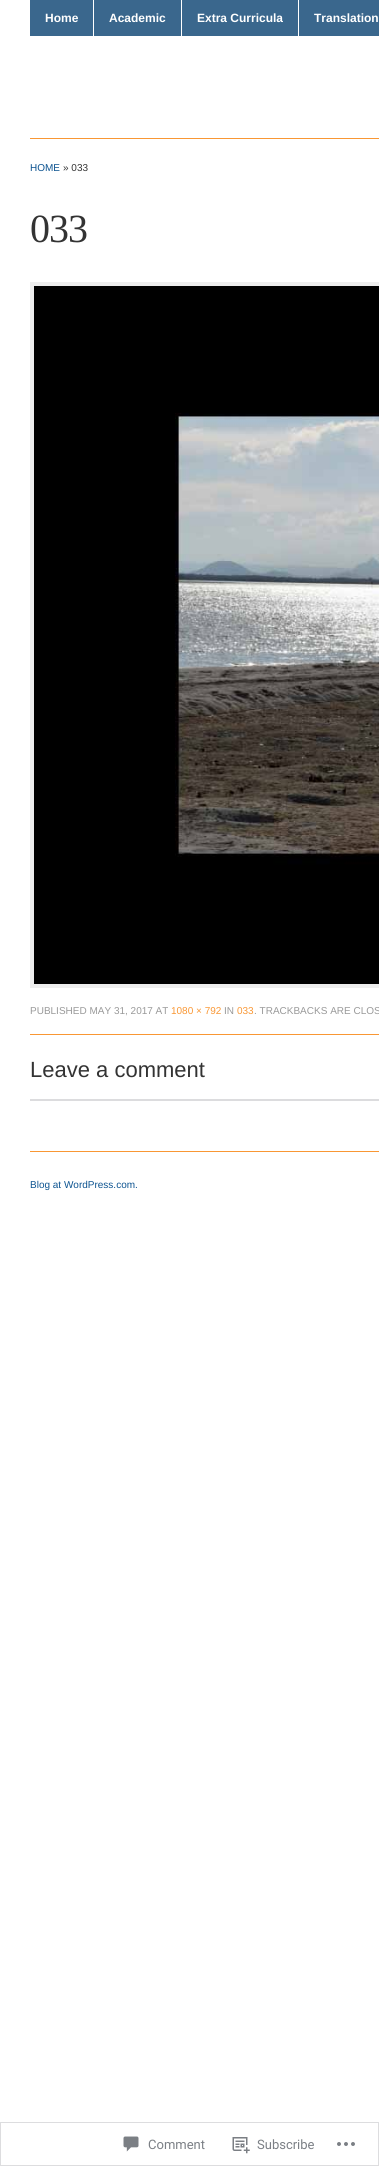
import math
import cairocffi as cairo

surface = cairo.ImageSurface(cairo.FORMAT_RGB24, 379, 2166)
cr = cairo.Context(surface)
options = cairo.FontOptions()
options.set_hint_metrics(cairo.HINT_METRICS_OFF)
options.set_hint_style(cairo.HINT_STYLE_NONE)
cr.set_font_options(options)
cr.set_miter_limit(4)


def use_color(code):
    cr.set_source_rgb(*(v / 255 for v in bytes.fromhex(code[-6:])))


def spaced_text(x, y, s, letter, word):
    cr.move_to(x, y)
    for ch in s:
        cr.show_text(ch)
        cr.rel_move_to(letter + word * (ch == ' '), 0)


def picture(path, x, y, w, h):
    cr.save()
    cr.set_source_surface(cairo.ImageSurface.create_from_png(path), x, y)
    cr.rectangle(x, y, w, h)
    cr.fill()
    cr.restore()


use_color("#ffffff")
cr.paint()
use_color("#3a678d")
cr.rectangle(30, 0, 349, 36)
cr.fill()
use_color("#ffffff")
cr.rectangle(93, 0, 1, 36)
cr.fill()
cr.select_font_face("Liberation Sans", cairo.FONT_SLANT_NORMAL, cairo.FONT_WEIGHT_BOLD)
cr.set_font_size(12)
cr.move_to(45, 22)
cr.show_text("Home")
cr.rectangle(181, 0, 1, 36)
cr.fill()
cr.move_to(109, 22)
cr.show_text("Academic")
cr.rectangle(298, 0, 1, 36)
cr.fill()
cr.move_to(197, 22)
cr.show_text("Extra Curricula")
cr.move_to(314, 22)
cr.show_text("Translation")
use_color("#f99734")
cr.rectangle(30, 138, 349, 1)
cr.fill()
cr.select_font_face("Liberation Sans")
cr.set_font_size(10)
use_color("#0c5390")
cr.move_to(30, 171)
cr.show_text("HOME")
use_color("#333333")
cr.move_to(63, 171)
cr.show_text("» 033")
cr.select_font_face("Liberation Serif")
cr.set_font_size(40)
spaced_text(30, 242, "033", -1, 0)
cr.rectangle(32, 284, 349, 702)
use_color("#eeeeee")
cr.set_line_width(4)
cr.stroke()
picture("img1.png", 34, 286, 345, 698)
cr.select_font_face("Liberation Sans")
cr.set_font_size(10)
use_color("#999999")
cr.move_to(30, 1014)
cr.show_text("PUBLISHED MAY 31, 2017 AT")
use_color("#f99734")
cr.move_to(171, 1014)
cr.show_text("1080 × 792")
use_color("#999999")
cr.move_to(224, 1014)
cr.show_text("IN")
use_color("#f99734")
cr.move_to(237, 1014)
cr.show_text("033")
use_color("#999999")
cr.move_to(254, 1014)
cr.show_text(". TRACKBACKS ARE CLOS")
use_color("#f99734")
cr.rectangle(30, 1034, 349, 1)
cr.fill()
cr.set_font_size(22)
use_color("#333333")
cr.move_to(30, 1077)
cr.show_text("Leave a comment")
use_color("#dcdcde")
cr.rectangle(30, 1099, 349, 2)
cr.fill()
use_color("#f99734")
cr.rectangle(30, 1151, 349, 1)
cr.fill()
cr.set_font_size(10)
use_color("#0c5390")
cr.move_to(30, 1188)
cr.show_text("Blog at WordPress.com.")
cr.rectangle(0.5, 2122.5, 378, 43)
use_color("#dddddf")
cr.set_line_width(1)
cr.stroke()
picture("img2.png", 123, 2136, 16, 16)
cr.select_font_face("Roboto")
cr.set_font_size(13)
use_color("#7b7f85")
cr.move_to(148, 2149)
cr.show_text("Comment")
picture("img3.png", 232, 2137, 18, 17)
cr.move_to(257, 2149)
cr.show_text("Subscribe")
picture("img4.png", 337, 2142, 18, 4)
surface.write_to_png("result.png")
